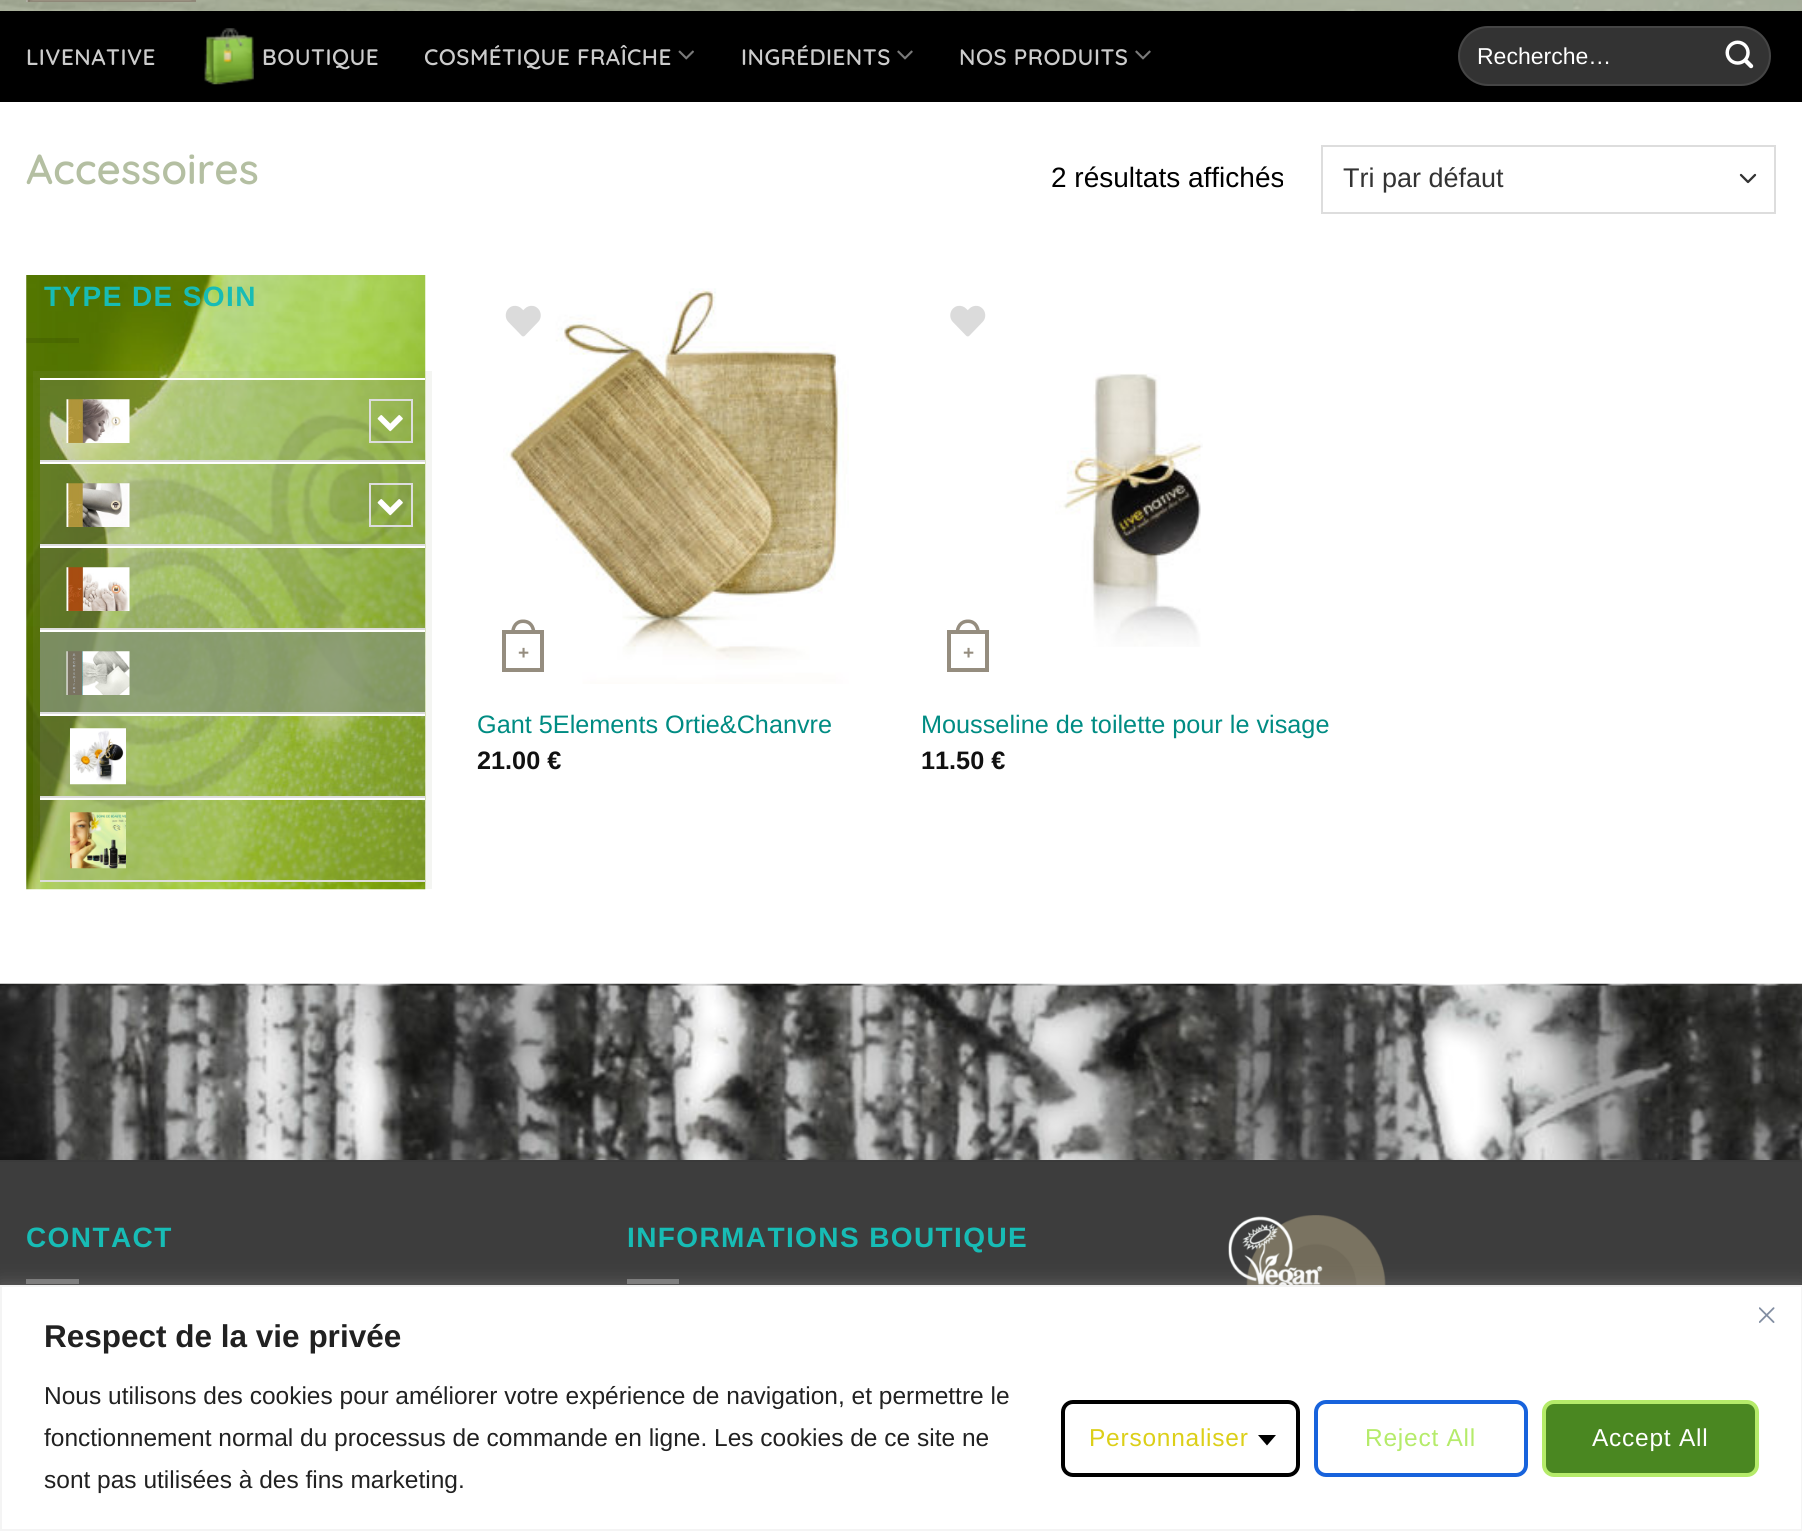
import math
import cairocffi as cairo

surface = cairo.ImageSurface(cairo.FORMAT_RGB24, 1802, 1531)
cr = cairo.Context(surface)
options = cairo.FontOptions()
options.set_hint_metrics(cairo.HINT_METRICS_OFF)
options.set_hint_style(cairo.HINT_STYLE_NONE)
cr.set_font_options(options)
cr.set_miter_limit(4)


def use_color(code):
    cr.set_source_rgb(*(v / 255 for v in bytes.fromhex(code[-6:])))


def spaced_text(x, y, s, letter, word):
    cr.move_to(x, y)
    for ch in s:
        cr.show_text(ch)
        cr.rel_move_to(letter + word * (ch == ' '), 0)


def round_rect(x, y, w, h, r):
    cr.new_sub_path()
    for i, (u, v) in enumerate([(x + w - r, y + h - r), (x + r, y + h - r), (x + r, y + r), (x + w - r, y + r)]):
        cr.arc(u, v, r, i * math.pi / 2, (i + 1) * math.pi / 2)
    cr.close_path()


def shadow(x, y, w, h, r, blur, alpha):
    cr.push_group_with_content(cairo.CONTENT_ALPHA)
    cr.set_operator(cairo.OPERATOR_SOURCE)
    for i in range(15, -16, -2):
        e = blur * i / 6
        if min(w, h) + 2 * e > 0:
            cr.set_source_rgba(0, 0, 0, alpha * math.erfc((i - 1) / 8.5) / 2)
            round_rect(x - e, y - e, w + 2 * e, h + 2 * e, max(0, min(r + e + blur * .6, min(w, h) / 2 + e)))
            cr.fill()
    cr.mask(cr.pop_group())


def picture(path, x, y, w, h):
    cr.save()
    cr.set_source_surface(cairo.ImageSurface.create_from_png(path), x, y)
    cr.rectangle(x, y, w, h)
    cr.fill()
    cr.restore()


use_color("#ffffff")
cr.paint()
picture("img1.png", 0, 0, 1802, 11)
picture("img2.png", 26, 0, 170, 2)
use_color("#000000")
cr.rectangle(0, 11, 1802, 91)
cr.fill()
cr.select_font_face("Quicksand SemiBold")
cr.set_font_size(22.4)
use_color("#cccccc")
spaced_text(26, 65, "LIVENATIVE", 0.5, 0)
picture("img3.png", 204, 28, 50, 57)
spaced_text(262, 65, "BOUTIQUE", 0.5, 0)
spaced_text(424, 65, "COSMÉTIQUE FRAÎCHE", 0.5, 0)
picture("img4.png", 678, 50, 16, 10)
spaced_text(741, 65, "INGRÉDIENTS", 0.5, 0)
picture("img5.png", 897, 50, 16, 10)
spaced_text(959, 65, "NOS PRODUITS", 0.5, 0)
picture("img5.png", 1135, 50, 16, 10)
use_color("#333333")
round_rect(1458, 26, 313, 60, 30)
cr.fill()
round_rect(1459, 27, 311, 58, 29)
cr.set_source_rgba(1, 1, 1, 0.09)
cr.stroke()
cr.select_font_face("Liberation Sans")
cr.set_font_size(23)
use_color("#ffffff")
cr.move_to(1477, 64)
cr.show_text("Recherche…")
picture("img6.png", 1725, 40, 29, 29)
cr.select_font_face("Quicksand SemiBold")
cr.set_font_size(42)
use_color("#b4bfa2")
cr.move_to(26, 184)
cr.show_text("Accessoires")
cr.select_font_face("Liberation Sans")
cr.set_font_size(28)
use_color("#000000")
cr.move_to(1051, 187)
cr.show_text("2 résultats affichés")
cr.new_path()
cr.move_to(1741, 175)
cr.line_to(1748, 182)
cr.line_to(1755, 175)
use_color("#333333")
cr.set_line_width(2.3)
cr.set_line_cap(cairo.LINE_CAP_ROUND)
cr.set_line_join(cairo.LINE_JOIN_ROUND)
cr.stroke()
cr.rectangle(1322, 146, 453, 67)
use_color("#dddddd")
cr.set_line_width(2)
cr.set_line_cap(cairo.LINE_CAP_BUTT)
cr.set_line_join(cairo.LINE_JOIN_MITER)
cr.stroke()
cr.set_font_size(27)
use_color("#333333")
cr.move_to(1343, 187)
cr.show_text("Tri par défaut")
picture("img7.png", 26, 275, 400, 615)
cr.select_font_face("Liberation Sans", cairo.FONT_SLANT_NORMAL, cairo.FONT_WEIGHT_BOLD)
cr.set_font_size(28)
use_color("#17bcb5")
spaced_text(44, 306, "TYPE DE SOIN", 1.4, 0)
cr.set_source_rgba(0, 0, 0, 0.1)
cr.rectangle(26, 338, 53, 5)
cr.fill()
cr.set_source_rgba(0.549, 0.6, 0.506, 0.1)
cr.rectangle(33, 371, 399, 518)
cr.fill()
cr.set_source_rgba(0.549, 0.549, 0.549, 0.2)
cr.rectangle(40, 380, 385, 80)
cr.fill()
use_color("#ffffff")
cr.rectangle(40, 378, 385, 2)
cr.fill()
use_color("#dddddd")
cr.rectangle(40, 460, 385, 2)
cr.fill()
picture("img8.png", 66, 399, 64, 44)
cr.rectangle(370, 400, 42, 42)
cr.stroke()
picture("img9.png", 377, 415, 26, 17)
cr.set_source_rgba(0.549, 0.549, 0.549, 0.2)
cr.rectangle(40, 464, 385, 80)
cr.fill()
use_color("#ffffff")
cr.rectangle(40, 462, 385, 2)
cr.fill()
use_color("#dddddd")
cr.rectangle(40, 544, 385, 2)
cr.fill()
picture("img10.png", 66, 483, 64, 44)
cr.rectangle(370, 484, 42, 42)
cr.stroke()
picture("img11.png", 377, 499, 26, 17)
cr.set_source_rgba(0.549, 0.549, 0.549, 0.2)
cr.rectangle(40, 548, 385, 80)
cr.fill()
use_color("#ffffff")
cr.rectangle(40, 546, 385, 2)
cr.fill()
use_color("#dddddd")
cr.rectangle(40, 628, 385, 2)
cr.fill()
picture("img12.png", 66, 567, 64, 44)
cr.set_source_rgba(0.518, 0.584, 0.459, 0.8)
cr.rectangle(40, 632, 385, 80)
cr.fill()
use_color("#ffffff")
cr.rectangle(40, 630, 385, 2)
cr.fill()
use_color("#dddddd")
cr.rectangle(40, 712, 385, 2)
cr.fill()
picture("img13.png", 66, 651, 64, 44)
cr.set_source_rgba(0.549, 0.549, 0.549, 0.2)
cr.rectangle(40, 716, 385, 80)
cr.fill()
use_color("#ffffff")
cr.rectangle(40, 714, 385, 2)
cr.fill()
use_color("#dddddd")
cr.rectangle(40, 796, 385, 2)
cr.fill()
picture("img14.png", 70, 728, 56, 57)
cr.set_source_rgba(0.549, 0.549, 0.549, 0.2)
cr.rectangle(40, 800, 385, 80)
cr.fill()
use_color("#ffffff")
cr.rectangle(40, 798, 385, 2)
cr.fill()
use_color("#dddddd")
cr.rectangle(40, 880, 385, 2)
cr.fill()
picture("img15.png", 70, 812, 56, 57)
picture("img17.png", 503, 288, 346, 396)
picture("img16.png", 505, 305, 36, 32)
cr.rectangle(504, 632, 38, 38)
use_color("#958d7f")
cr.set_line_width(4)
cr.stroke()
cr.set_fill_rule(cairo.FILL_RULE_EVEN_ODD)
cr.new_path()
cr.move_to(523, 619.5)
cr.curve_to(531.5, 619.5, 535.5, 626, 535.5, 633.5)
cr.line_to(511, 633.5)
cr.curve_to(511, 626, 515, 619.5, 523, 619.5)
cr.close_path()
cr.move_to(523, 623)
cr.curve_to(529.5, 623, 532, 628, 532, 633.5)
cr.line_to(514.5, 633.5)
cr.curve_to(514.5, 628, 517, 623, 523, 623)
cr.close_path()
cr.fill()
cr.set_font_size(19)
cr.move_to(518, 659)
cr.show_text("+")
cr.select_font_face("Liberation Sans")
cr.set_font_size(25.25)
use_color("#008c83")
cr.move_to(477, 733)
cr.show_text("Gant 5Elements Ortie&Chanvre")
cr.select_font_face("Liberation Sans", cairo.FONT_SLANT_NORMAL, cairo.FONT_WEIGHT_BOLD)
use_color("#111111")
cr.move_to(477, 769)
cr.show_text("21.00 €")
picture("img18.png", 950, 305, 36, 32)
picture("img19.png", 1055, 373, 148, 274)
cr.rectangle(949, 632, 38, 38)
use_color("#958d7f")
cr.stroke()
cr.new_path()
cr.move_to(968, 619.5)
cr.curve_to(976, 619.5, 980, 626, 980, 633.5)
cr.line_to(955.5, 633.5)
cr.curve_to(955.5, 626, 959.5, 619.5, 968, 619.5)
cr.close_path()
cr.move_to(968, 623)
cr.curve_to(974, 623, 976.5, 628, 976.5, 633.5)
cr.line_to(959, 633.5)
cr.curve_to(959, 628, 961.5, 623, 968, 623)
cr.close_path()
cr.fill()
cr.set_font_size(19)
cr.move_to(963, 659)
cr.show_text("+")
cr.select_font_face("Liberation Sans")
cr.set_font_size(25.25)
use_color("#008c83")
cr.move_to(921, 733)
cr.show_text("Mousseline de toilette pour le visage")
cr.select_font_face("Liberation Sans", cairo.FONT_SLANT_NORMAL, cairo.FONT_WEIGHT_BOLD)
use_color("#111111")
cr.move_to(921, 769)
cr.show_text("11.50 €")
picture("img20.png", 0, 983, 1802, 177)
cr.set_source_rgba(0, 0, 0, 0.05)
cr.rectangle(48, 984, 1754, 2)
cr.fill()
use_color("#3d3d3d")
cr.rectangle(0, 1162, 1802, 123)
cr.fill()
use_color("#3a3a3a")
cr.rectangle(0, 1160, 1802, 2)
cr.fill()
cr.set_font_size(28)
use_color("#17bcb5")
spaced_text(26, 1247, "CONTACT", 1.4, 0)
use_color("#777777")
cr.rectangle(26, 1279, 53, 5)
cr.fill()
use_color("#17bcb5")
spaced_text(627, 1247, "INFORMATIONS BOUTIQUE", 1.4, 0)
use_color("#777777")
cr.rectangle(627, 1279, 52, 5)
cr.fill()
picture("img21.png", 1228, 1215, 158, 70)
use_color("#acabab")
shadow(0, 1283, 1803, 247, 0, 9, 0.3)
use_color("#ffffff")
cr.rectangle(1, 1286, 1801, 244)
cr.fill_preserve()
use_color("#f4f4f4")
cr.set_line_width(2)
cr.stroke()
picture("img22.png", 1759, 1307, 16, 16)
cr.set_font_size(31.5)
use_color("#212121")
cr.move_to(44, 1347)
cr.show_text("Respect de la vie privée")
cr.select_font_face("Liberation Sans")
cr.set_font_size(24.5)
cr.move_to(44, 1404)
cr.show_text("Nous utilisons des cookies pour améliorer votre expérience de navigation, et permettre le")
cr.move_to(44, 1446)
cr.show_text("fonctionnement normal du processus de commande en ligne. Les cookies de ce site ne")
cr.move_to(44, 1488)
cr.show_text("sont pas utilisées à des fins marketing.")
round_rect(1063, 1402, 235, 73, 10)
use_color("#000000")
cr.set_line_width(4)
cr.stroke()
use_color("#dccf18")
spaced_text(1089, 1446, "Personnaliser", 0.75, 0)
use_color("#000000")
cr.set_fill_rule(cairo.FILL_RULE_WINDING)
cr.new_path()
cr.move_to(1258, 1435)
cr.line_to(1276, 1435)
cr.line_to(1267, 1445.5)
cr.close_path()
cr.fill()
round_rect(1316, 1402, 210, 73, 10)
use_color("#1863dc")
cr.stroke()
use_color("#b5eb6a")
spaced_text(1365, 1446, "Reject All", 0.75, 0)
use_color("#4a8721")
round_rect(1544, 1402, 213, 73, 10)
cr.fill_preserve()
use_color("#b5eb6a")
cr.stroke()
use_color("#ffffff")
spaced_text(1592, 1446, "Accept All", 0.75, 0)
surface.write_to_png("result.png")
